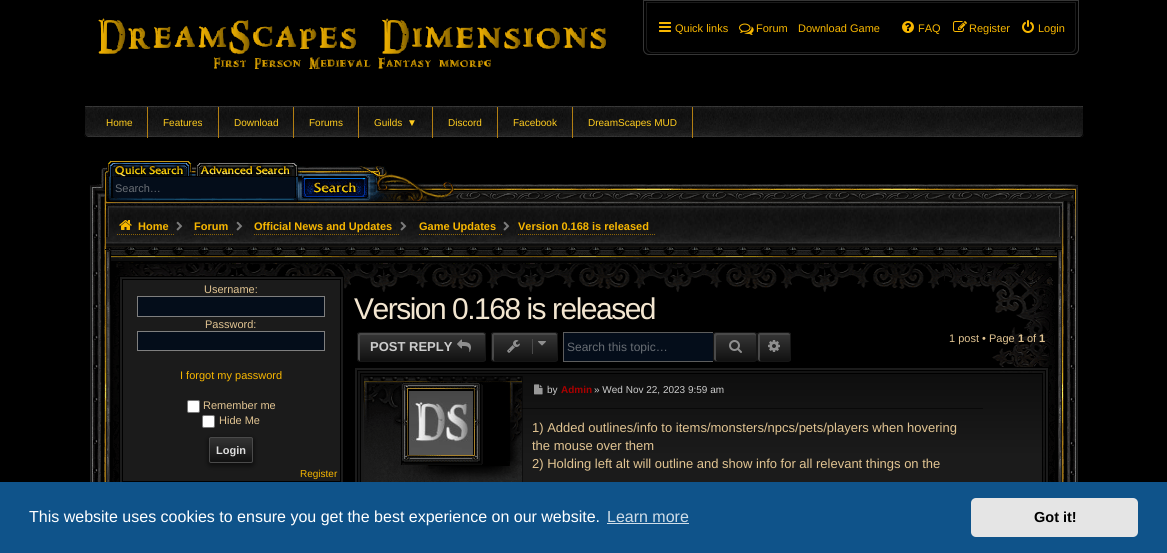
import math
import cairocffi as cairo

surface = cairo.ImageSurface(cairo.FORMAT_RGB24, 1167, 553)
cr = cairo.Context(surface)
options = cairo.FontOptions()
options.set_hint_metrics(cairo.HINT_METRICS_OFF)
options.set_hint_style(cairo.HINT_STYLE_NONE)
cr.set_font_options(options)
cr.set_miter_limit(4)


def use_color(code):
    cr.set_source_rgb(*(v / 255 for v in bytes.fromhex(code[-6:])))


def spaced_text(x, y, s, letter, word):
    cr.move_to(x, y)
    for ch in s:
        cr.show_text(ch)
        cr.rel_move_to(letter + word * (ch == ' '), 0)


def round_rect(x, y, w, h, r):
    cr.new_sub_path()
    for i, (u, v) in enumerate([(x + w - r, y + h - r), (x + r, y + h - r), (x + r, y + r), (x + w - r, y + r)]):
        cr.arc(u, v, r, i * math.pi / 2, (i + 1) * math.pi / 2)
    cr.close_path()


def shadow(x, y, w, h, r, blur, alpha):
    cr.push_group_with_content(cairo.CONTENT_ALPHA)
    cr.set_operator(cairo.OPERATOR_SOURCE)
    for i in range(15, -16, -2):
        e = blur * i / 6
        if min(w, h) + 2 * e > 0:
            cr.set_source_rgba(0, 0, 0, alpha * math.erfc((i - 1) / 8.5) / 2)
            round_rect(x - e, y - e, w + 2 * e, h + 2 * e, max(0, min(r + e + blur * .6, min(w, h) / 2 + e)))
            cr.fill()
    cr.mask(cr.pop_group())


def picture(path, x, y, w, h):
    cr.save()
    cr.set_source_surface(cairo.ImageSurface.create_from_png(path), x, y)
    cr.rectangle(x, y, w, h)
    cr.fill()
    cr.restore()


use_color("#000000")
cr.paint()
cr.new_path()
cr.move_to(643.5, 0.5)
cr.line_to(1078.5, 0.5)
cr.line_to(1078.5, 49)
cr.curve_to(1078.5, 52, 1076, 54.5, 1073, 54.5)
cr.line_to(649, 54.5)
cr.curve_to(646, 54.5, 643.5, 52, 643.5, 49)
cr.close_path()
use_color("#363636")
cr.set_line_width(1)
cr.stroke()
cr.new_path()
cr.move_to(646.5, 2.5)
cr.line_to(1075.5, 2.5)
cr.line_to(1075.5, 47)
cr.curve_to(1075.5, 50, 1073, 52.5, 1070, 52.5)
cr.line_to(652, 52.5)
cr.curve_to(649, 52.5, 646.5, 50, 646.5, 47)
cr.close_path()
use_color("#1a1a1a")
cr.stroke()
picture("img1.png", 659, 22, 12, 10)
cr.select_font_face("Liberation Sans")
cr.set_font_size(11)
use_color("#f8b700")
cr.move_to(675, 32)
cr.show_text("Quick links")
picture("img2.png", 739, 23, 15, 12)
cr.move_to(756, 32)
cr.show_text("Forum")
cr.move_to(798, 32)
cr.show_text("Download Game")
picture("img3.png", 902, 21, 12, 12)
cr.move_to(918, 32)
cr.show_text("FAQ")
picture("img4.png", 953, 21, 14, 11)
cr.move_to(969, 32)
cr.show_text("Register")
picture("img5.png", 1022, 20, 12, 13)
cr.move_to(1038, 32)
cr.show_text("Login")
picture("img6.png", 442, 184, 634, 21)
picture("img7.png", 84, 106, 1000, 32)
cr.new_path()
cr.move_to(84.5, 105.5)
cr.line_to(1083.5, 105.5)
cr.line_to(1083.5, 133)
cr.curve_to(1083.5, 135.5, 1081.5, 137.5, 1079, 137.5)
cr.line_to(89, 137.5)
cr.curve_to(86.5, 137.5, 84.5, 135.5, 84.5, 133)
cr.close_path()
use_color("#000000")
cr.stroke()
use_color("#b37f12")
cr.rectangle(147, 107, 1, 31)
cr.fill()
cr.set_font_size(10)
use_color("#ffcc1e")
cr.move_to(106, 126)
cr.show_text("Home")
use_color("#b37f12")
cr.rectangle(218, 107, 1, 31)
cr.fill()
use_color("#ffcc1e")
cr.move_to(163, 126)
cr.show_text("Features")
use_color("#b37f12")
cr.rectangle(293, 107, 1, 31)
cr.fill()
use_color("#ffcc1e")
cr.move_to(234, 126)
cr.show_text("Download")
use_color("#b37f12")
cr.rectangle(358, 107, 1, 31)
cr.fill()
use_color("#ffcc1e")
cr.move_to(309, 126)
cr.show_text("Forums")
use_color("#b37f12")
cr.rectangle(432, 107, 1, 31)
cr.fill()
use_color("#ffcc1e")
cr.move_to(374, 126)
cr.show_text("Guilds")
cr.move_to(407, 126)
cr.show_text("▼")
use_color("#b37f12")
cr.rectangle(497, 107, 1, 31)
cr.fill()
use_color("#ffcc1e")
cr.move_to(448, 126)
cr.show_text("Discord")
use_color("#b37f12")
cr.rectangle(572, 107, 1, 31)
cr.fill()
use_color("#ffcc1e")
cr.move_to(513, 126)
cr.show_text("Facebook")
use_color("#b37f12")
cr.rectangle(692, 107, 1, 31)
cr.fill()
use_color("#ffcc1e")
cr.move_to(588, 126)
cr.show_text("DreamScapes MUD")
picture("img8.png", 98, 18, 508, 51)
picture("img9.png", 101, 166, 355, 39)
picture("img10.png", 107, 160, 85, 17)
use_color("#040d1a")
round_rect(113, 177, 182, 21, 2)
cr.fill()
cr.set_font_size(11)
use_color("#686d73")
cr.move_to(115, 192)
cr.show_text("Search…")
picture("img12.png", 298, 166, 74, 39)
picture("img11.png", 195, 162, 107, 15)
picture("img13.png", 106, 205, 955, 42)
picture("img21.png", 90, 247, 988, 235)
picture("img14.png", 89, 184, 22, 121)
picture("img15.png", 119, 220, 13, 10)
cr.select_font_face("Liberation Sans", cairo.FONT_SLANT_NORMAL, cairo.FONT_WEIGHT_BOLD)
use_color("#f8b700")
cr.move_to(138, 230)
cr.show_text("Home")
cr.new_path()
cr.move_to(117, 234.5)
cr.line_to(174, 234.5)
use_color("#8c6407")
cr.set_dash([1, 1])
cr.stroke()
picture("img16.png", 176, 221, 7, 10)
use_color("#f8b700")
cr.move_to(194, 230)
cr.show_text("Forum")
cr.new_path()
cr.move_to(194, 234.5)
cr.line_to(234, 234.5)
use_color("#8c6407")
cr.stroke()
picture("img17.png", 236, 221, 7, 10)
use_color("#f8b700")
cr.move_to(254, 230)
cr.show_text("Official News and Updates")
cr.new_path()
cr.move_to(254, 234.5)
cr.line_to(399, 234.5)
use_color("#8c6407")
cr.stroke()
picture("img18.png", 400, 221, 7, 10)
use_color("#f8b700")
cr.move_to(419, 230)
cr.show_text("Game Updates")
cr.new_path()
cr.move_to(419, 234.5)
cr.line_to(502, 234.5)
use_color("#8c6407")
cr.stroke()
picture("img19.png", 503, 221, 7, 10)
use_color("#f8b700")
cr.move_to(518, 230)
cr.show_text("Version 0.168 is released")
cr.new_path()
cr.move_to(518, 234.5)
cr.line_to(655, 234.5)
use_color("#8c6407")
cr.stroke()
picture("img20.png", 1057, 184, 22, 100)
use_color("#000000")
shadow(120, 279, 223, 207, 0, 2, 0.6)
cr.rectangle(119.5, 276.5, 224, 208)
use_color("#000000")
cr.set_dash([])
cr.stroke()
cr.rectangle(121, 278, 221, 205)
use_color("#1b1b1b")
cr.set_line_width(2)
cr.stroke()
cr.rectangle(122.5, 279.5, 218, 202)
cr.fill_preserve()
use_color("#000000")
cr.set_line_width(1)
cr.stroke()
cr.select_font_face("Liberation Sans")
use_color("#e1c492")
cr.move_to(204, 293)
cr.show_text("Username:")
use_color("#040d1a")
cr.rectangle(137.5, 296.5, 187, 20)
cr.fill_preserve()
use_color("#7f7f7f")
cr.stroke()
use_color("#e1c492")
cr.move_to(205, 328)
cr.show_text("Password:")
use_color("#040d1a")
cr.rectangle(137.5, 331.5, 187, 19)
cr.fill_preserve()
use_color("#7f7f7f")
cr.stroke()
use_color("#f8b700")
cr.move_to(180, 379)
cr.show_text("I forgot my password")
use_color("#ffffff")
round_rect(187.5, 400.5, 12, 12, 1.5)
cr.fill_preserve()
use_color("#767676")
cr.stroke()
use_color("#e1c492")
cr.move_to(203, 409)
cr.show_text("Remember me")
use_color("#ffffff")
round_rect(202.5, 415.5, 12, 12, 1.5)
cr.fill_preserve()
use_color("#767676")
cr.stroke()
use_color("#e1c492")
cr.move_to(219, 424)
cr.show_text("Hide Me")
use_color("#000000")
shadow(208, 438, 46, 28, 3, 2.5, 0.5)
cr.save()
round_rect(209, 437, 44, 26, 2)
cr.clip()
gradient = cairo.LinearGradient(231, 462, 231, 438)
gradient.add_color_stop_rgba(0, 0.067, 0.067, 0.067, 1)
gradient.add_color_stop_rgba(1, 0.2, 0.2, 0.2, 1)
cr.set_source(gradient)
cr.rectangle(209, 438, 44, 24)
cr.fill()
cr.restore()
round_rect(209.5, 437.5, 43, 25, 1.5)
use_color("#4a4a4a")
cr.stroke()
cr.select_font_face("Liberation Sans", cairo.FONT_SLANT_NORMAL, cairo.FONT_WEIGHT_BOLD)
use_color("#dddddd")
cr.move_to(216, 454)
cr.show_text("Login")
cr.select_font_face("Liberation Sans")
cr.set_font_size(10)
use_color("#f8b700")
cr.move_to(300, 477)
cr.show_text("Register")
cr.set_font_size(30)
use_color("#f3e6d0")
spaced_text(354, 319, "Version 0.168 is released", -1.5, 0)
cr.save()
round_rect(491, 332, 67, 30, 3)
cr.clip()
gradient = cairo.LinearGradient(525, 333, 525, 361)
gradient.add_color_stop_rgba(0, 0.216, 0.216, 0.216, 1)
gradient.add_color_stop_rgba(1, 0.067, 0.067, 0.067, 1)
cr.set_source(gradient)
cr.rectangle(491, 333, 67, 28)
cr.fill()
cr.restore()
use_color("#494949")
cr.new_path()
cr.move_to(495, 335)
cr.line_to(556, 335)
cr.curve_to(557, 335, 557, 335, 557, 336)
cr.curve_to(557, 330, 549, 333, 545, 333)
cr.line_to(504, 333)
cr.curve_to(488, 333, 492, 331, 492, 347)
cr.line_to(492, 355)
cr.curve_to(492, 358, 491, 361, 495, 361)
cr.curve_to(493, 361, 494, 357, 494, 356)
cr.line_to(494, 335)
cr.close_path()
cr.fill()
round_rect(491.5, 332.5, 66, 29, 2.5)
use_color("#161616")
cr.stroke()
picture("img22.png", 507, 340, 13, 13)
use_color("#494949")
cr.rectangle(532, 339, 1, 15)
cr.fill()
picture("img23.png", 538, 341, 8, 5)
cr.set_font_size(11)
use_color("#e1c492")
cr.move_to(949, 342)
cr.show_text("1 post • Page")
cr.select_font_face("Liberation Sans", cairo.FONT_SLANT_NORMAL, cairo.FONT_WEIGHT_BOLD)
cr.move_to(1018, 342)
cr.show_text("1")
cr.select_font_face("Liberation Sans")
cr.move_to(1027, 342)
cr.show_text("of")
cr.select_font_face("Liberation Sans", cairo.FONT_SLANT_NORMAL, cairo.FONT_WEIGHT_BOLD)
cr.move_to(1039, 342)
cr.show_text("1")
cr.save()
round_rect(357, 332, 129, 30, 3)
cr.clip()
gradient = cairo.LinearGradient(422, 333, 422, 361)
gradient.add_color_stop_rgba(0, 0.216, 0.216, 0.216, 1)
gradient.add_color_stop_rgba(1, 0.067, 0.067, 0.067, 1)
cr.set_source(gradient)
cr.rectangle(357, 333, 129, 28)
cr.fill()
cr.restore()
use_color("#494949")
cr.new_path()
cr.move_to(361, 335)
cr.line_to(485, 335)
cr.line_to(485, 336)
cr.line_to(485, 335)
cr.curve_to(485, 334, 484, 333, 483, 333)
cr.line_to(360, 333)
cr.curve_to(359, 333, 358, 334, 358, 335)
cr.line_to(358, 359)
cr.curve_to(358, 360, 359, 361, 360, 361)
cr.line_to(361, 361)
cr.line_to(360, 361)
cr.line_to(360, 340)
cr.curve_to(360, 339, 359, 335, 361, 335)
cr.close_path()
cr.fill()
round_rect(357.5, 332.5, 128, 29, 2.5)
use_color("#161616")
cr.stroke()
cr.set_font_size(13)
use_color("#cccccc")
cr.move_to(370, 351)
cr.show_text("POST REPLY")
picture("img24.png", 457, 339, 14, 13)
use_color("#040d1a")
cr.rectangle(564, 333, 149, 28)
cr.fill()
use_color("#5d5d5d")
cr.rectangle(563, 332, 150, 1)
cr.fill()
cr.rectangle(563, 361, 150, 1)
cr.fill()
cr.rectangle(563, 332, 1, 30)
cr.fill()
cr.select_font_face("Liberation Sans")
cr.set_font_size(12)
use_color("#686d73")
cr.move_to(567, 351)
cr.show_text("Search this topic…")
cr.save()
round_rect(713, 332, 44, 30, 3)
cr.clip()
gradient = cairo.LinearGradient(735, 333, 735, 361)
gradient.add_color_stop_rgba(0, 0.216, 0.216, 0.216, 1)
gradient.add_color_stop_rgba(1, 0.067, 0.067, 0.067, 1)
cr.set_source(gradient)
cr.rectangle(713, 333, 44, 28)
cr.fill()
cr.restore()
use_color("#494949")
cr.new_path()
cr.move_to(717, 335)
cr.line_to(749, 335)
cr.curve_to(750, 335, 756, 334, 756, 336)
cr.curve_to(756, 331, 751, 333, 748, 333)
cr.line_to(729, 333)
cr.curve_to(726, 333, 716, 332, 714, 334)
cr.line_to(714, 355)
cr.curve_to(714, 358, 713, 361, 717, 361)
cr.line_to(716, 360)
cr.line_to(716, 336)
cr.close_path()
cr.fill()
round_rect(713.5, 332.5, 43, 29, 2.5)
use_color("#161616")
cr.stroke()
picture("img25.png", 729, 340, 13, 13)
cr.save()
round_rect(757, 332, 34, 30, 3)
cr.clip()
gradient = cairo.LinearGradient(774, 333, 774, 361)
gradient.add_color_stop_rgba(0, 0.216, 0.216, 0.216, 1)
gradient.add_color_stop_rgba(1, 0.067, 0.067, 0.067, 1)
cr.set_source(gradient)
cr.rectangle(757, 333, 34, 28)
cr.fill()
cr.restore()
use_color("#494949")
cr.new_path()
cr.move_to(761, 335)
cr.line_to(790, 335)
cr.line_to(790, 336)
cr.line_to(790, 335)
cr.curve_to(790, 334, 789, 333, 788, 333)
cr.line_to(760, 333)
cr.curve_to(759, 333, 758, 334, 758, 335)
cr.line_to(758, 359)
cr.curve_to(758, 360, 759, 361, 760, 361)
cr.line_to(761, 361)
cr.curve_to(759, 361, 760, 357, 760, 356)
cr.line_to(760, 335)
cr.close_path()
cr.fill()
round_rect(757.5, 332.5, 33, 29, 2.5)
use_color("#161616")
cr.stroke()
picture("img26.png", 768, 340, 12, 12)
use_color("#000000")
shadow(355, 370, 693, 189, 0, 2, 0.6)
cr.rectangle(354.5, 367.5, 694, 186)
use_color("#000000")
cr.stroke()
cr.set_source_rgba(0.106, 0.106, 0.106, 0.75)
cr.rectangle(358, 371, 687, 111)
cr.fill()
cr.rectangle(357.5, 370.5, 688, 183)
use_color("#000000")
cr.stroke()
cr.rectangle(356, 369, 691, 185)
use_color("#1b1b1b")
cr.set_line_width(2)
cr.stroke()
gradient = cairo.LinearGradient(702, 374, 702, 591)
gradient.add_color_stop_rgba(0, 0.055, 0.055, 0.055, 1)
gradient.add_color_stop_rgba(0.38, 0.106, 0.106, 0.106, 1)
cr.set_source(gradient)
cr.rectangle(361, 374, 681, 108)
cr.fill()
cr.rectangle(360.5, 373.5, 682, 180)
use_color("#000000")
cr.set_line_width(1)
cr.stroke()
picture("img27.png", 363, 376, 159, 106)
cr.rectangle(401, 390, 33, 75)
cr.fill()
picture("img28.png", 401, 382, 82, 83)
picture("img29.png", 409, 391, 64, 64)
gradient = cairo.LinearGradient(523, 376, 523, 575)
gradient.add_color_stop_rgba(0, 0, 0, 0, 0.5)
gradient.add_color_stop_rgba(0.5, 0, 0, 0, 0.5)
gradient.add_color_stop_rgba(1, 0, 0, 0, 0)
cr.set_source(gradient)
cr.rectangle(522, 376, 1, 106)
cr.fill()
picture("img30.png", 534, 384, 9, 11)
cr.set_font_size(10)
use_color("#cccccc")
cr.move_to(547, 393)
cr.show_text("by")
cr.select_font_face("Liberation Sans", cairo.FONT_SLANT_NORMAL, cairo.FONT_WEIGHT_BOLD)
use_color("#aa0000")
cr.move_to(561, 393)
cr.show_text("Admin")
cr.select_font_face("Liberation Sans")
use_color("#cccccc")
cr.move_to(594, 393)
cr.show_text("» Wed Nov 22, 2023 9:59 am")
cr.set_source_rgba(0, 0, 0, 0.5)
cr.rectangle(522, 408, 461, 1)
cr.fill()
cr.set_font_size(13)
use_color("#e1c492")
cr.move_to(532, 432)
cr.show_text("1) Added outlines/info to items/monsters/npcs/pets/players when hovering")
cr.move_to(532, 450)
cr.show_text("the mouse over them")
cr.move_to(532, 468)
cr.show_text("2) Holding left alt will outline and show info for all relevant things on the")
use_color("#0f538a")
cr.rectangle(0, 482, 1167, 71)
cr.fill()
cr.set_font_size(16)
use_color("#ffffff")
cr.move_to(29, 522)
cr.show_text("This website uses cookies to ensure you get the best experience on our website.")
use_color("#cfdde8")
cr.move_to(607, 522)
cr.show_text("Learn more")
cr.rectangle(607, 523, 82, 1)
cr.fill()
use_color("#e5e5e5")
round_rect(971, 498, 167, 39, 5)
cr.fill()
cr.select_font_face("Liberation Sans", cairo.FONT_SLANT_NORMAL, cairo.FONT_WEIGHT_BOLD)
cr.set_font_size(14.5)
use_color("#000000")
cr.move_to(1034, 522)
cr.show_text("Got it!")
surface.write_to_png("result.png")
